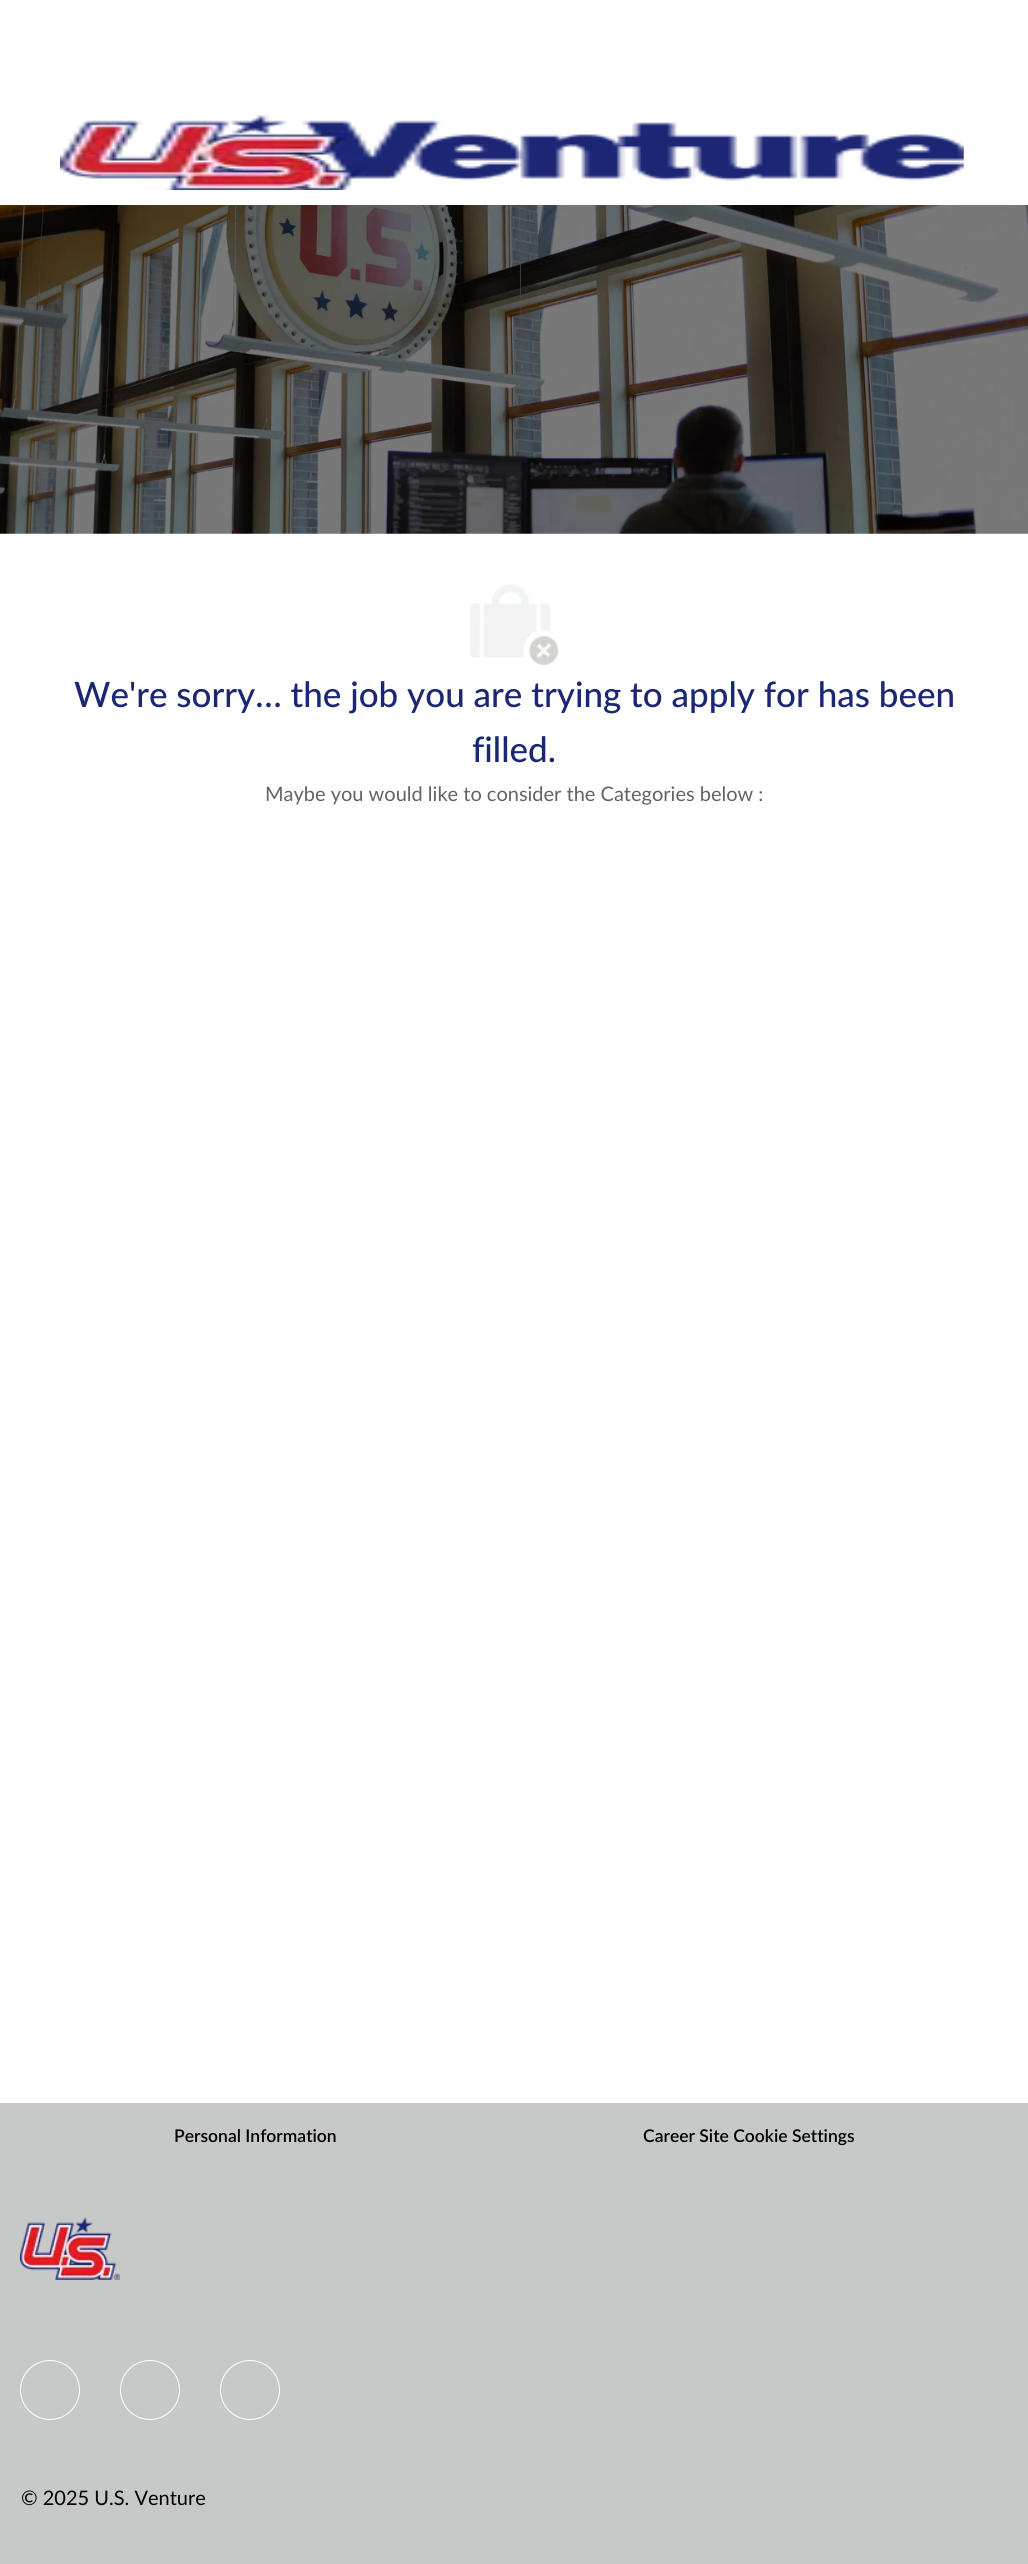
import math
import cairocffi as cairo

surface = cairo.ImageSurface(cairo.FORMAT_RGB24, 1028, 2564)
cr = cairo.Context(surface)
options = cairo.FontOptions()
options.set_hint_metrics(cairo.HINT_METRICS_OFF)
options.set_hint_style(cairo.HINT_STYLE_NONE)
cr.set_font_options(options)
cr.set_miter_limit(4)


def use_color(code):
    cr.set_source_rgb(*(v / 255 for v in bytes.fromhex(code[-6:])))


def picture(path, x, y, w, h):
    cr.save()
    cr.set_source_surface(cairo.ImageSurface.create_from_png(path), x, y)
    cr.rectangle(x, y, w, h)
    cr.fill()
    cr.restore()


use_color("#ffffff")
cr.paint()
picture("img1.png", 60, 115, 904, 75)
picture("img2.png", 0, 205, 1028, 329)
picture("img3.png", 469, 584, 90, 81)
cr.select_font_face("Lato Medium")
cr.set_font_size(35)
use_color("#1b2775")
cr.move_to(74, 707)
cr.show_text("We're sorry… the job you are trying to apply for has been")
cr.move_to(472, 762)
cr.show_text("filled.")
cr.select_font_face("Lato")
cr.set_font_size(20)
use_color("#636363")
cr.move_to(265, 801)
cr.show_text("Maybe you would like to consider the Categories below :")
use_color("#c7c9c8")
cr.rectangle(0, 2103, 1028, 461)
cr.fill()
cr.select_font_face("Lato SemiBold")
cr.set_font_size(17.5)
use_color("#000000")
cr.move_to(174, 2142)
cr.show_text("Personal Information")
cr.move_to(643, 2142)
cr.show_text("Career Site Cookie Settings")
picture("img4.png", 20, 2217, 100, 63)
cr.arc(50, 2390, 29.5, 0, 2 * math.pi)
use_color("#ffffff")
cr.set_line_width(1)
cr.stroke()
cr.arc(150, 2390, 29.5, 0, 2 * math.pi)
cr.stroke()
cr.arc(250, 2390, 29.5, 0, 2 * math.pi)
cr.stroke()
cr.select_font_face("Lato")
cr.set_font_size(20)
use_color("#000000")
cr.move_to(21, 2505)
cr.show_text("© 2025 U.S. Venture")
surface.write_to_png("result.png")
